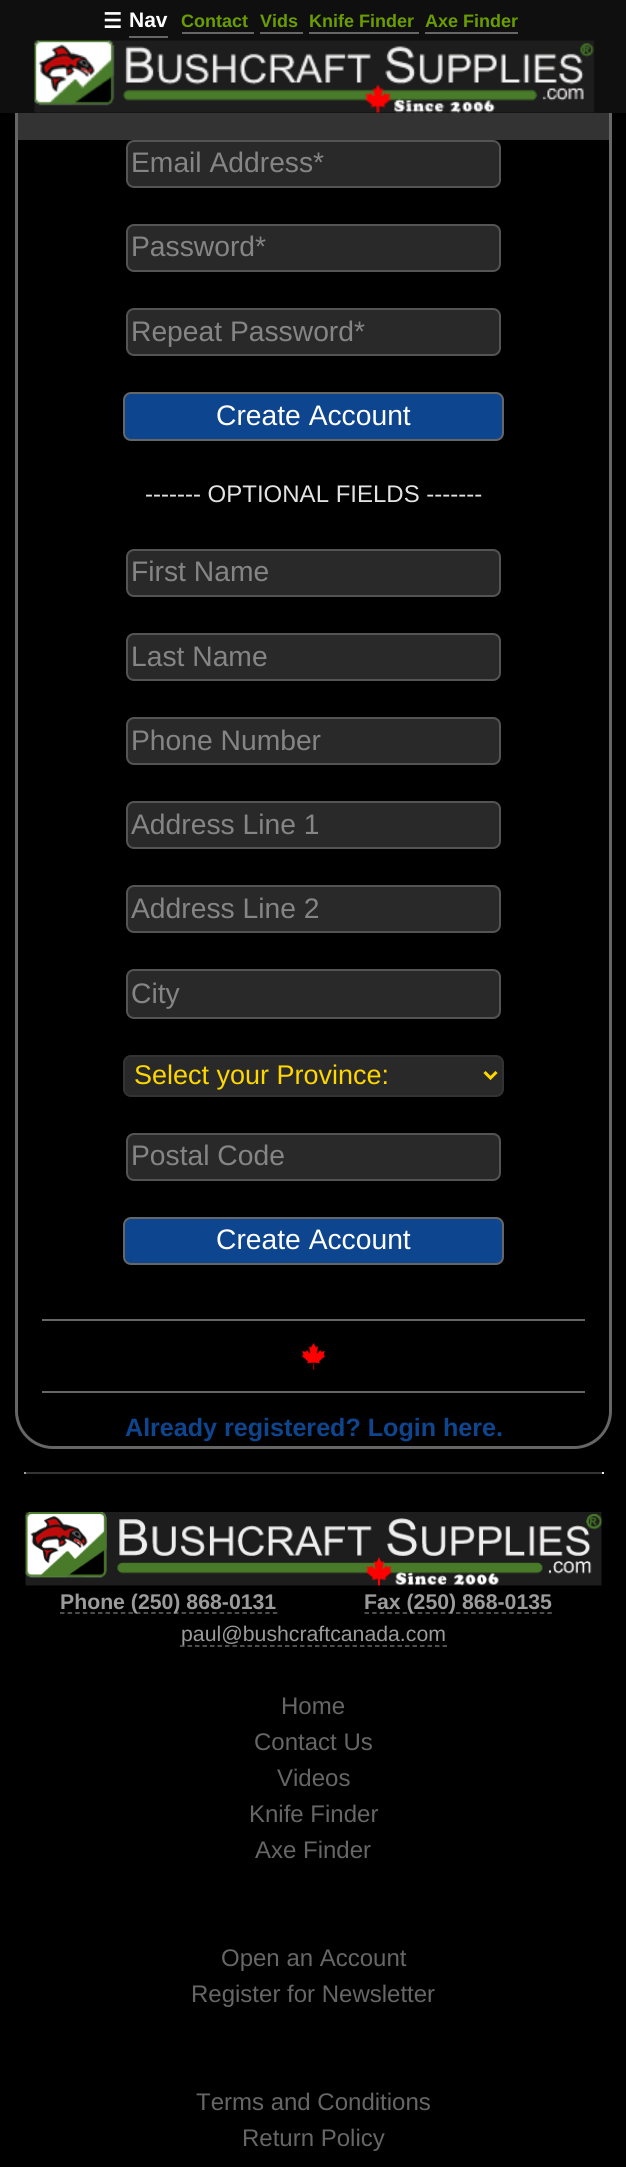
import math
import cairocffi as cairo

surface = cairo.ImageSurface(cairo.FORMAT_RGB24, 626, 2167)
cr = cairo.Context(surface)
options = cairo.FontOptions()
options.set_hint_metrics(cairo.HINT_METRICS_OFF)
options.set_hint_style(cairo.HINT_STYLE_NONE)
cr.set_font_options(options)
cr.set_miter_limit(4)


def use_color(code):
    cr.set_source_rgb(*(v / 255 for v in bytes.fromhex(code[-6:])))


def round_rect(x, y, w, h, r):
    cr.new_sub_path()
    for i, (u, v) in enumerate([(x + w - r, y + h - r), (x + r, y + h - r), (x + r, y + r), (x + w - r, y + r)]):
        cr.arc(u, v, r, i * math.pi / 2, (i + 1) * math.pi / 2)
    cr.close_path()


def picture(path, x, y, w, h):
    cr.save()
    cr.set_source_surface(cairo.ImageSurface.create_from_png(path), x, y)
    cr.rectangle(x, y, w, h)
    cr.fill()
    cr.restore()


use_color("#000000")
cr.paint()
round_rect(16.5, 64.5, 594, 1383, 36.5)
use_color("#666666")
cr.set_line_width(3)
cr.stroke()
use_color("#0f0f0f")
cr.rectangle(0, 0, 626, 113)
cr.fill()
cr.select_font_face("DejaVu Sans", cairo.FONT_SLANT_NORMAL, cairo.FONT_WEIGHT_BOLD)
cr.set_font_size(21)
use_color("#ffffff")
cr.move_to(103, 28)
cr.show_text("☰")
use_color("#666666")
cr.rectangle(129, 36, 39, 2)
cr.fill()
cr.select_font_face("Liberation Sans", cairo.FONT_SLANT_NORMAL, cairo.FONT_WEIGHT_BOLD)
use_color("#ffffff")
cr.move_to(129, 27)
cr.show_text("Nav")
cr.set_font_size(18)
use_color("#6a9d00")
cr.move_to(181, 27)
cr.show_text("Contact")
use_color("#666666")
cr.rectangle(182, 32, 72, 2)
cr.fill()
use_color("#6a9d00")
cr.move_to(260, 27)
cr.show_text("Vids")
use_color("#666666")
cr.rectangle(260, 32, 43, 2)
cr.fill()
use_color("#6a9d00")
cr.move_to(309, 27)
cr.show_text("Knife Finder")
use_color("#666666")
cr.rectangle(309, 32, 110, 2)
cr.fill()
use_color("#6a9d00")
cr.move_to(425, 27)
cr.show_text("Axe Finder")
use_color("#666666")
cr.rectangle(425, 32, 93, 2)
cr.fill()
picture("img1.png", 34, 40, 561, 73)
use_color("#333333")
cr.rectangle(18, 113, 591, 27)
cr.fill()
use_color("#000000")
cr.new_path()
cr.move_to(18, 140)
cr.line_to(609, 140)
cr.line_to(609, 1408)
cr.curve_to(609, 1429, 592, 1446, 571, 1446)
cr.line_to(56, 1446)
cr.curve_to(35, 1446, 18, 1429, 18, 1408)
cr.close_path()
cr.fill()
use_color("#292929")
round_rect(127, 141, 373, 46, 7)
cr.fill_preserve()
use_color("#545454")
cr.set_line_width(2)
cr.stroke()
cr.select_font_face("Liberation Sans")
cr.set_font_size(28.25)
use_color("#858585")
cr.move_to(131, 172)
cr.show_text("Email Address*")
use_color("#292929")
round_rect(127, 225, 373, 46, 7)
cr.fill_preserve()
use_color("#545454")
cr.stroke()
use_color("#858585")
cr.move_to(131, 256)
cr.show_text("Password*")
use_color("#292929")
round_rect(127, 309, 373, 46, 7)
cr.fill_preserve()
use_color("#545454")
cr.stroke()
use_color("#858585")
cr.move_to(131, 341)
cr.show_text("Repeat Password*")
use_color("#0e458f")
round_rect(124, 393, 379, 47, 7)
cr.fill_preserve()
use_color("#666666")
cr.stroke()
use_color("#ffffff")
cr.move_to(216, 425)
cr.show_text("Create Account")
cr.set_font_size(24)
use_color("#e3e3e3")
cr.move_to(145, 502)
cr.show_text("------- OPTIONAL FIELDS -------")
use_color("#292929")
round_rect(127, 550, 373, 46, 7)
cr.fill_preserve()
use_color("#545454")
cr.stroke()
cr.set_font_size(28.25)
use_color("#858585")
cr.move_to(131, 581)
cr.show_text("First Name")
use_color("#292929")
round_rect(127, 634, 373, 46, 7)
cr.fill_preserve()
use_color("#545454")
cr.stroke()
use_color("#858585")
cr.move_to(131, 666)
cr.show_text("Last Name")
use_color("#292929")
round_rect(127, 718, 373, 46, 7)
cr.fill_preserve()
use_color("#545454")
cr.stroke()
use_color("#858585")
cr.move_to(131, 750)
cr.show_text("Phone Number")
use_color("#292929")
round_rect(127, 802, 373, 46, 7)
cr.fill_preserve()
use_color("#545454")
cr.stroke()
use_color("#858585")
cr.move_to(131, 834)
cr.show_text("Address Line 1")
use_color("#292929")
round_rect(127, 886, 373, 46, 7)
cr.fill_preserve()
use_color("#545454")
cr.stroke()
use_color("#858585")
cr.move_to(131, 918)
cr.show_text("Address Line 2")
use_color("#292929")
round_rect(127, 970, 373, 48, 7)
cr.fill_preserve()
use_color("#545454")
cr.stroke()
use_color("#858585")
cr.move_to(131, 1003)
cr.show_text("City")
use_color("#292929")
round_rect(124, 1056, 379, 40, 7)
cr.fill_preserve()
use_color("#333333")
cr.stroke()
cr.new_path()
cr.move_to(484.5, 1072)
cr.line_to(490.5, 1078)
cr.line_to(496.5, 1072)
use_color("#ffd700")
cr.set_line_width(3)
cr.stroke()
cr.set_font_size(27)
cr.move_to(134, 1084)
cr.show_text("Select your Province:")
use_color("#292929")
round_rect(127, 1134, 373, 46, 7)
cr.fill_preserve()
use_color("#545454")
cr.set_line_width(2)
cr.stroke()
cr.set_font_size(28.25)
use_color("#858585")
cr.move_to(131, 1165)
cr.show_text("Postal Code")
use_color("#0e458f")
round_rect(124, 1218, 379, 46, 7)
cr.fill_preserve()
use_color("#666666")
cr.stroke()
use_color("#ffffff")
cr.move_to(216, 1249)
cr.show_text("Create Account")
use_color("#666666")
cr.rectangle(42, 1319, 543, 2)
cr.fill()
picture("img2.png", 301, 1342, 25, 28)
cr.rectangle(42, 1391, 543, 2)
cr.fill()
cr.select_font_face("Liberation Sans", cairo.FONT_SLANT_NORMAL, cairo.FONT_WEIGHT_BOLD)
cr.set_font_size(25.1)
use_color("#0e458f")
cr.move_to(125, 1436)
cr.show_text("Already registered? Login here.")
use_color("#333333")
cr.rectangle(24, 1472, 579, 2)
cr.fill()
use_color("#eeeeee")
cr.rectangle(602, 1472, 2, 2)
cr.fill()
use_color("#9f9f9f")
cr.rectangle(24, 1472, 2, 2)
cr.fill()
picture("img3.png", 25, 1512, 577, 74)
cr.new_path()
cr.move_to(60, 1613)
cr.line_to(277.5, 1613)
use_color("#666666")
cr.set_line_width(1.5)
cr.set_dash([4.5, 3.1])
cr.stroke()
cr.set_font_size(21.25)
use_color("#9b9b9b")
cr.move_to(60, 1609)
cr.show_text("Phone (250) 868-0131")
cr.new_path()
cr.move_to(364.5, 1613)
cr.line_to(552, 1613)
use_color("#666666")
cr.set_dash([4.5, 3.12])
cr.stroke()
use_color("#9b9b9b")
cr.move_to(364, 1609)
cr.show_text("Fax (250) 868-0135")
cr.new_path()
cr.move_to(180, 1646)
cr.line_to(447, 1646)
use_color("#666666")
cr.set_dash([4.5, 3])
cr.stroke()
cr.select_font_face("Liberation Sans")
use_color("#9b9b9b")
cr.move_to(181, 1641)
cr.show_text("paul@bushcraftcanada.com")
cr.set_font_size(24)
use_color("#666666")
cr.move_to(281, 1714)
cr.show_text("Home")
cr.move_to(254, 1750)
cr.show_text("Contact Us")
cr.move_to(277, 1786)
cr.show_text("Videos")
cr.move_to(249, 1822)
cr.show_text("Knife Finder")
cr.move_to(255, 1858)
cr.show_text("Axe Finder")
cr.move_to(221, 1966)
cr.show_text("Open an Account")
cr.move_to(191, 2002)
cr.show_text("Register for Newsletter")
cr.move_to(196, 2110)
cr.show_text("Terms and Conditions")
cr.move_to(242, 2146)
cr.show_text("Return Policy")
surface.write_to_png("result.png")
